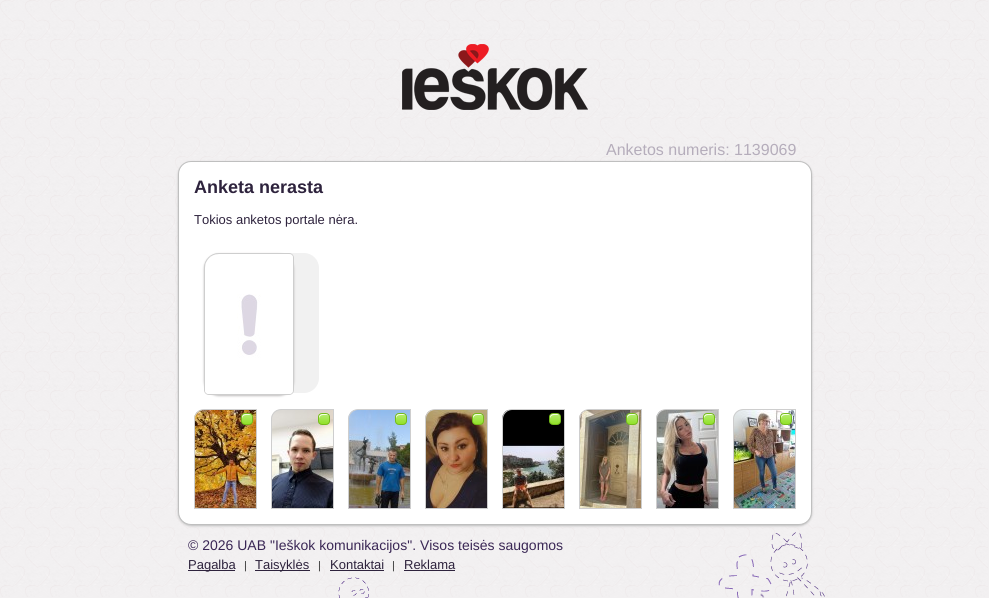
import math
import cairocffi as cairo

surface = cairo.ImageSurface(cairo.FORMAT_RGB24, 989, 598)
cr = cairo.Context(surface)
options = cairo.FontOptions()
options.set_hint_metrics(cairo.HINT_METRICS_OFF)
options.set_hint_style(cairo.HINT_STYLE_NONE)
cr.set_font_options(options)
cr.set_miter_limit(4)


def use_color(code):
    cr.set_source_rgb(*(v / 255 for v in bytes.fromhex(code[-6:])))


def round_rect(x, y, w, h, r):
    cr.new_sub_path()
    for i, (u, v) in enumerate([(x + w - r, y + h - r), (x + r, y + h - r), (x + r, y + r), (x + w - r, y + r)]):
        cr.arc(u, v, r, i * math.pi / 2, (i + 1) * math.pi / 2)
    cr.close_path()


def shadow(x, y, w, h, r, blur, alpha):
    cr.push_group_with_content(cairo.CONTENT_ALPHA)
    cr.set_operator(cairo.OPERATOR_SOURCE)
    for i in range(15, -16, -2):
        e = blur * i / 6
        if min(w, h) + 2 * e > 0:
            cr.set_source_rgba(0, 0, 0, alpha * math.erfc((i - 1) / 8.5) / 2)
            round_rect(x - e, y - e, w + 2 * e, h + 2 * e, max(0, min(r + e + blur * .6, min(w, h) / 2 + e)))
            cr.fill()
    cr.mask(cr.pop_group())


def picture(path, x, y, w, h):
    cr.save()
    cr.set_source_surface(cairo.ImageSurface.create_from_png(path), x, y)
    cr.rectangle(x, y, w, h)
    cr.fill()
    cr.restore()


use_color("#f2f0f1")
cr.paint()
picture("img1.png", 0, 0, 988, 597)
picture("img2.png", 402, 44, 186, 66)
cr.select_font_face("Liberation Sans")
cr.set_font_size(16)
use_color("#b5adbb")
cr.move_to(606, 155)
cr.show_text("Anketos numeris: 1139069")
use_color("#bfbfbf")
shadow(178, 162, 634, 364, 13, 1, 1)
use_color("#ffffff")
round_rect(178.5, 161.5, 633, 363, 12.5)
cr.fill_preserve()
use_color("#bfbfbf")
cr.set_line_width(1)
cr.stroke()
cr.select_font_face("Liberation Sans", cairo.FONT_SLANT_NORMAL, cairo.FONT_WEIGHT_BOLD)
cr.set_font_size(18)
use_color("#2e233d")
cr.move_to(194, 193)
cr.show_text("Anketa nerasta")
cr.select_font_face("Liberation Sans")
cr.set_font_size(13)
cr.move_to(194, 224)
cr.show_text("Tokios anketos portale nėra.")
use_color("#f1f1f1")
round_rect(204, 253, 115, 140, 15)
cr.fill()
use_color("#c1bfbf")
shadow(204, 254, 90, 142, 15, 1, 1)
cr.new_path()
cr.move_to(219, 253.5)
cr.line_to(289, 253.5)
cr.curve_to(291.5, 253.5, 293.5, 255.5, 293.5, 258)
cr.line_to(293.5, 390)
cr.curve_to(293.5, 392.5, 291.5, 394.5, 289, 394.5)
cr.line_to(209, 394.5)
cr.curve_to(206.5, 394.5, 204.5, 392.5, 204.5, 390)
cr.line_to(204.5, 268)
cr.curve_to(204.5, 260, 211, 253.5, 219, 253.5)
cr.close_path()
use_color("#cecece")
cr.stroke()
picture("img3.png", 205, 254, 88, 140)
picture("img4.png", 194, 410, 62, 98)
cr.new_path()
cr.move_to(204, 409.5)
cr.line_to(256.5, 409.5)
cr.line_to(256.5, 508.5)
cr.line_to(194.5, 508.5)
cr.line_to(194.5, 419)
cr.curve_to(194.5, 414, 199, 409.5, 204, 409.5)
cr.close_path()
cr.stroke()
picture("img5.png", 241, 413, 12, 12)
picture("img6.png", 271, 410, 62, 98)
cr.new_path()
cr.move_to(281, 409.5)
cr.line_to(333.5, 409.5)
cr.line_to(333.5, 508.5)
cr.line_to(271.5, 508.5)
cr.line_to(271.5, 419)
cr.curve_to(271.5, 414, 276, 409.5, 281, 409.5)
cr.close_path()
cr.stroke()
picture("img7.png", 318, 413, 12, 12)
picture("img8.png", 348, 410, 62, 98)
cr.new_path()
cr.move_to(358, 409.5)
cr.line_to(410.5, 409.5)
cr.line_to(410.5, 508.5)
cr.line_to(348.5, 508.5)
cr.line_to(348.5, 419)
cr.curve_to(348.5, 414, 353, 409.5, 358, 409.5)
cr.close_path()
cr.stroke()
picture("img9.png", 395, 413, 12, 12)
picture("img10.png", 425, 410, 62, 98)
cr.new_path()
cr.move_to(435, 409.5)
cr.line_to(487.5, 409.5)
cr.line_to(487.5, 508.5)
cr.line_to(425.5, 508.5)
cr.line_to(425.5, 419)
cr.curve_to(425.5, 414, 430, 409.5, 435, 409.5)
cr.close_path()
cr.stroke()
picture("img11.png", 472, 413, 12, 12)
picture("img12.png", 502, 410, 62, 98)
cr.new_path()
cr.move_to(512, 409.5)
cr.line_to(564.5, 409.5)
cr.line_to(564.5, 508.5)
cr.line_to(502.5, 508.5)
cr.line_to(502.5, 419)
cr.curve_to(502.5, 414, 507, 409.5, 512, 409.5)
cr.close_path()
cr.stroke()
picture("img13.png", 549, 413, 12, 12)
picture("img14.png", 579, 410, 62, 98)
cr.new_path()
cr.move_to(589, 409.5)
cr.line_to(641.5, 409.5)
cr.line_to(641.5, 508.5)
cr.line_to(579.5, 508.5)
cr.line_to(579.5, 419)
cr.curve_to(579.5, 414, 584, 409.5, 589, 409.5)
cr.close_path()
cr.stroke()
picture("img15.png", 626, 413, 12, 12)
picture("img16.png", 656, 410, 62, 98)
cr.new_path()
cr.move_to(666, 409.5)
cr.line_to(718.5, 409.5)
cr.line_to(718.5, 508.5)
cr.line_to(656.5, 508.5)
cr.line_to(656.5, 419)
cr.curve_to(656.5, 414, 661, 409.5, 666, 409.5)
cr.close_path()
cr.stroke()
picture("img17.png", 703, 413, 12, 12)
picture("img18.png", 733, 410, 62, 98)
cr.new_path()
cr.move_to(743, 409.5)
cr.line_to(795.5, 409.5)
cr.line_to(795.5, 508.5)
cr.line_to(733.5, 508.5)
cr.line_to(733.5, 419)
cr.curve_to(733.5, 414, 738, 409.5, 743, 409.5)
cr.close_path()
cr.stroke()
picture("img19.png", 780, 413, 12, 12)
cr.set_font_size(14)
use_color("#3a2755")
cr.move_to(188, 550)
cr.show_text("© 2026 UAB \"Ieškok komunikacijos\". Visos teisės saugomos")
picture("img20.png", 718, 532, 107, 66)
use_color("#2e233d")
cr.rectangle(188, 570, 47, 1)
cr.fill()
cr.set_font_size(13)
cr.move_to(188, 569)
cr.show_text("Pagalba")
cr.set_font_size(11)
use_color("#363636")
cr.move_to(244, 569)
cr.show_text("|")
use_color("#2e233d")
cr.rectangle(255, 570, 55, 1)
cr.fill()
cr.set_font_size(13)
cr.move_to(255, 569)
cr.show_text("Taisyklės")
cr.set_font_size(11)
use_color("#363636")
cr.move_to(318, 569)
cr.show_text("|")
cr.set_font_size(13)
use_color("#2e233d")
cr.move_to(330, 569)
cr.show_text("Kontaktai")
cr.rectangle(330, 570, 54, 1)
cr.fill()
cr.set_font_size(11)
use_color("#363636")
cr.move_to(392, 569)
cr.show_text("|")
cr.set_font_size(13)
use_color("#2e233d")
cr.move_to(404, 569)
cr.show_text("Reklama")
cr.rectangle(404, 570, 51, 1)
cr.fill()
picture("img21.png", 338, 577, 31, 21)
surface.write_to_png("result.png")
